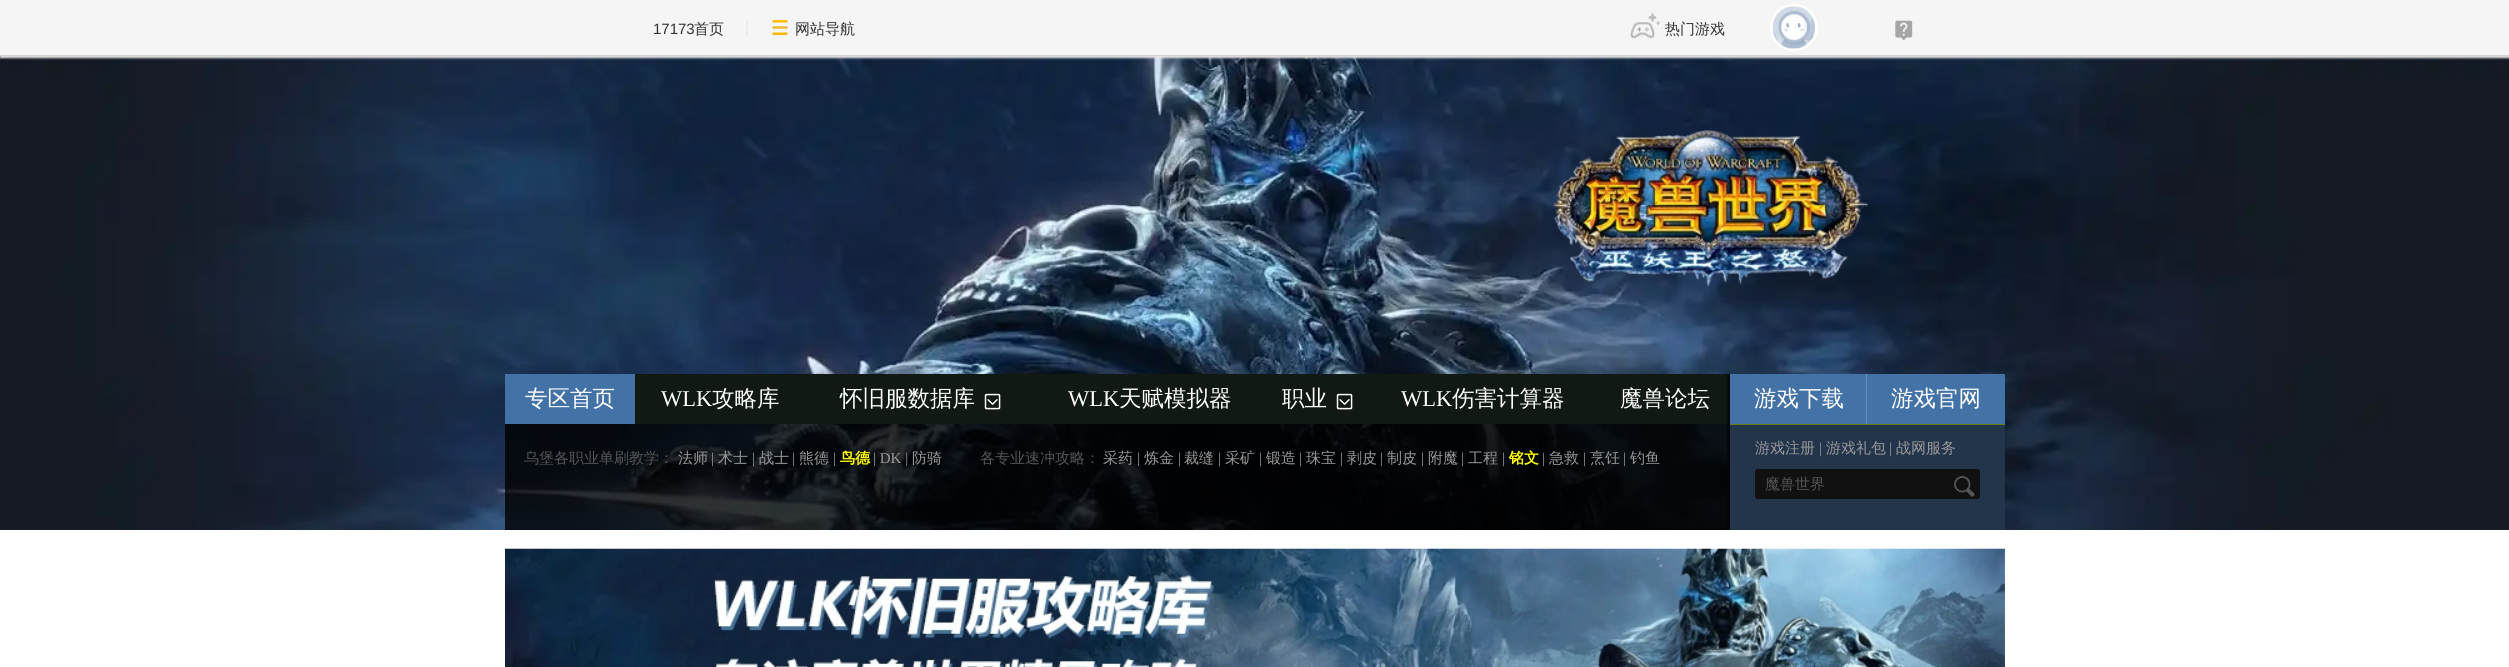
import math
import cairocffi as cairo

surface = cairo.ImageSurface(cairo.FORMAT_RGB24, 2509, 667)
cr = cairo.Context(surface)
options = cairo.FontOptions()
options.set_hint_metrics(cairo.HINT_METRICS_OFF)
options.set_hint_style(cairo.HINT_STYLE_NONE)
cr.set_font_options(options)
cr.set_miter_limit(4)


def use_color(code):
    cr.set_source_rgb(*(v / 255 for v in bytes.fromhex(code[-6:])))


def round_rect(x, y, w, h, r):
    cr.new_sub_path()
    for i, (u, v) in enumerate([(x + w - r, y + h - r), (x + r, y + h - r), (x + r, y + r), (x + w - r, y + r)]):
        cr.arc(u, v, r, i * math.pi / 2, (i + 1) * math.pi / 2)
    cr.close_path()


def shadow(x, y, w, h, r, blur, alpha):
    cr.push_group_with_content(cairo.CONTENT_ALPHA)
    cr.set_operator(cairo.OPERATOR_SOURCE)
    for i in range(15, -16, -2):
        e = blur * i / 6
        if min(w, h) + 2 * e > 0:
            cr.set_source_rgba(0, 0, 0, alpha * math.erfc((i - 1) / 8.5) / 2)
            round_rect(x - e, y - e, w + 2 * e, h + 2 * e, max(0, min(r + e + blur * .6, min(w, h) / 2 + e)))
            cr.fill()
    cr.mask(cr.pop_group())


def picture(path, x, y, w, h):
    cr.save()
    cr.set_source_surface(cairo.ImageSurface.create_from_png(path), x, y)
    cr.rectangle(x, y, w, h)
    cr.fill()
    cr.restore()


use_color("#ffffff")
cr.paint()
picture("img6.png", 0, 56, 2509, 474)
use_color("#e8e6e6")
shadow(0, 1, 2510, 57, 0, 1, 1)
use_color("#f5f5f5")
cr.rectangle(0, 0, 2509, 55)
cr.fill()
use_color("#d2d2d2")
cr.rectangle(0, 55, 2509, 1)
cr.fill()
cr.select_font_face("Liberation Sans")
cr.set_font_size(15)
use_color("#333333")
cr.move_to(653, 34)
cr.show_text("17173")
cr.select_font_face("WenQuanYi Zen Hei Medium")
cr.move_to(694, 34)
cr.show_text("首页")
picture("img1.png", 746, 21, 2, 15)
picture("img2.png", 772, 19, 16, 16)
cr.move_to(795, 34)
cr.show_text("网站导航")
picture("img3.png", 1630, 13, 30, 26)
cr.move_to(1665, 34)
cr.show_text("热门游戏")
round_rect(1771.5, 5.5, 45, 44, 22)
use_color("#ffffff")
cr.set_line_width(3)
cr.stroke()
picture("img4.png", 1772, 6, 43, 44)
picture("img5.png", 1895, 20, 18, 21)
picture("img7.png", 1553, 130, 315, 157)
use_color("#111913")
cr.rectangle(635, 374, 1095, 50)
cr.fill()
use_color("#4372a7")
cr.rectangle(505, 374, 130, 50)
cr.fill()
cr.set_font_size(22.5)
use_color("#ffffff")
cr.move_to(525, 406)
cr.show_text("专区首页")
cr.select_font_face("Liberation Serif")
cr.move_to(661, 406)
cr.show_text("WLK")
cr.select_font_face("WenQuanYi Zen Hei Medium")
cr.move_to(712, 406)
cr.show_text("攻略库")
cr.move_to(840, 406)
cr.show_text("怀旧服数据库")
cr.select_font_face("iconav")
cr.set_font_size(25)
cr.move_to(980, 414)
cr.show_text("+")
cr.select_font_face("Liberation Serif")
cr.set_font_size(22.5)
cr.move_to(1068, 406)
cr.show_text("WLK")
cr.select_font_face("WenQuanYi Zen Hei Medium")
cr.move_to(1119, 406)
cr.show_text("天赋模拟器")
cr.move_to(1282, 406)
cr.show_text("职业")
cr.select_font_face("iconav")
cr.set_font_size(25)
cr.move_to(1332, 414)
cr.show_text("+")
cr.select_font_face("Liberation Serif")
cr.set_font_size(22.5)
cr.move_to(1401, 406)
cr.show_text("WLK")
cr.select_font_face("WenQuanYi Zen Hei Medium")
cr.move_to(1452, 406)
cr.show_text("伤害计算器")
cr.move_to(1620, 406)
cr.show_text("魔兽论坛")
cr.set_source_rgba(0, 0, 0, 0.8)
cr.rectangle(505, 424, 1225, 106)
cr.fill()
cr.set_font_size(15)
use_color("#555555")
cr.move_to(524, 463)
cr.show_text("乌堡各职业单刷教学：")
use_color("#999999")
cr.move_to(678, 463)
cr.show_text("法师")
cr.select_font_face("Liberation Serif")
cr.move_to(711, 463)
cr.show_text("|")
cr.select_font_face("WenQuanYi Zen Hei Medium")
cr.move_to(718, 463)
cr.show_text("术士")
cr.select_font_face("Liberation Serif")
cr.move_to(752, 463)
cr.show_text("|")
cr.select_font_face("WenQuanYi Zen Hei Medium")
cr.move_to(759, 463)
cr.show_text("战士")
cr.select_font_face("Liberation Serif")
cr.move_to(792, 463)
cr.show_text("|")
cr.select_font_face("WenQuanYi Zen Hei Medium")
cr.move_to(799, 463)
cr.show_text("熊德")
cr.select_font_face("Liberation Serif")
cr.move_to(833, 463)
cr.show_text("|")
cr.select_font_face("WenQuanYi Zen Hei", cairo.FONT_SLANT_NORMAL, cairo.FONT_WEIGHT_BOLD)
use_color("#ffff00")
cr.move_to(840, 463)
cr.show_text("鸟德")
cr.select_font_face("Liberation Serif")
use_color("#999999")
cr.move_to(873, 463)
cr.show_text("| DK |")
cr.select_font_face("WenQuanYi Zen Hei Medium")
cr.move_to(912, 463)
cr.show_text("防骑")
use_color("#555555")
cr.move_to(980, 463)
cr.show_text("各专业速冲攻略：")
use_color("#999999")
cr.move_to(1103, 463)
cr.show_text("采药")
cr.select_font_face("Liberation Serif")
cr.move_to(1137, 463)
cr.show_text("|")
cr.select_font_face("WenQuanYi Zen Hei Medium")
cr.move_to(1144, 463)
cr.show_text("炼金")
cr.select_font_face("Liberation Serif")
cr.move_to(1178, 463)
cr.show_text("|")
cr.select_font_face("WenQuanYi Zen Hei Medium")
cr.move_to(1184, 463)
cr.show_text("裁缝")
cr.select_font_face("Liberation Serif")
cr.move_to(1218, 463)
cr.show_text("|")
cr.select_font_face("WenQuanYi Zen Hei Medium")
cr.move_to(1225, 463)
cr.show_text("采矿")
cr.select_font_face("Liberation Serif")
cr.move_to(1259, 463)
cr.show_text("|")
cr.select_font_face("WenQuanYi Zen Hei Medium")
cr.move_to(1266, 463)
cr.show_text("锻造")
cr.select_font_face("Liberation Serif")
cr.move_to(1299, 463)
cr.show_text("|")
cr.select_font_face("WenQuanYi Zen Hei Medium")
cr.move_to(1306, 463)
cr.show_text("珠宝")
cr.select_font_face("Liberation Serif")
cr.move_to(1340, 463)
cr.show_text("|")
cr.select_font_face("WenQuanYi Zen Hei Medium")
cr.move_to(1347, 463)
cr.show_text("剥皮")
cr.select_font_face("Liberation Serif")
cr.move_to(1380, 463)
cr.show_text("|")
cr.select_font_face("WenQuanYi Zen Hei Medium")
cr.move_to(1387, 463)
cr.show_text("制皮")
cr.select_font_face("Liberation Serif")
cr.move_to(1421, 463)
cr.show_text("|")
cr.select_font_face("WenQuanYi Zen Hei Medium")
cr.move_to(1428, 463)
cr.show_text("附魔")
cr.select_font_face("Liberation Serif")
cr.move_to(1461, 463)
cr.show_text("|")
cr.select_font_face("WenQuanYi Zen Hei Medium")
cr.move_to(1468, 463)
cr.show_text("工程")
cr.select_font_face("Liberation Serif")
cr.move_to(1502, 463)
cr.show_text("|")
cr.select_font_face("WenQuanYi Zen Hei", cairo.FONT_SLANT_NORMAL, cairo.FONT_WEIGHT_BOLD)
use_color("#ffff00")
cr.move_to(1509, 463)
cr.show_text("铭文")
cr.select_font_face("Liberation Serif")
use_color("#999999")
cr.move_to(1542, 463)
cr.show_text("|")
cr.select_font_face("WenQuanYi Zen Hei Medium")
cr.move_to(1549, 463)
cr.show_text("急救")
cr.select_font_face("Liberation Serif")
cr.move_to(1583, 463)
cr.show_text("|")
cr.select_font_face("WenQuanYi Zen Hei Medium")
cr.move_to(1590, 463)
cr.show_text("烹饪")
cr.select_font_face("Liberation Serif")
cr.move_to(1623, 463)
cr.show_text("|")
cr.select_font_face("WenQuanYi Zen Hei Medium")
cr.move_to(1630, 463)
cr.show_text("钓鱼")
use_color("#23354a")
cr.rectangle(1730, 425, 275, 105)
cr.fill()
gradient = cairo.LinearGradient(1723, 374, 1730, 374)
gradient.add_color_stop_rgba(0, 0, 0, 0, 0)
gradient.add_color_stop_rgba(0.45, 0, 0, 0, 0.1)
gradient.add_color_stop_rgba(1, 0, 0, 0, 1)
cr.set_source(gradient)
cr.rectangle(1726, 374, 4, 156)
cr.fill()
use_color("#4372a7")
cr.rectangle(1730, 374, 275, 50)
cr.fill()
use_color("#697a11")
cr.rectangle(1730, 424, 275, 1)
cr.fill()
cr.set_font_size(22.5)
use_color("#ffffff")
cr.move_to(1754, 406)
cr.show_text("游戏下载")
use_color("#698eb9")
cr.rectangle(1866, 374, 1, 50)
cr.fill()
use_color("#ffffff")
cr.move_to(1891, 406)
cr.show_text("游戏官网")
cr.set_font_size(15)
use_color("#999999")
cr.move_to(1755, 453)
cr.show_text("游戏注册")
cr.select_font_face("Liberation Serif")
cr.move_to(1819, 453)
cr.show_text("|")
cr.select_font_face("WenQuanYi Zen Hei Medium")
cr.move_to(1826, 453)
cr.show_text("游戏礼包")
cr.select_font_face("Liberation Serif")
cr.move_to(1889, 453)
cr.show_text("|")
cr.select_font_face("WenQuanYi Zen Hei Medium")
cr.move_to(1896, 453)
cr.show_text("战网服务")
use_color("#111111")
round_rect(1755, 469, 225, 30, 2.5)
cr.fill()
use_color("#555555")
cr.move_to(1765, 489)
cr.show_text("魔兽世界")
cr.select_font_face("iconav")
cr.set_font_size(30)
cr.move_to(1949, 501)
cr.show_text("*")
picture("img8.png", 505, 548, 1500, 119)
surface.write_to_png("result.png")
